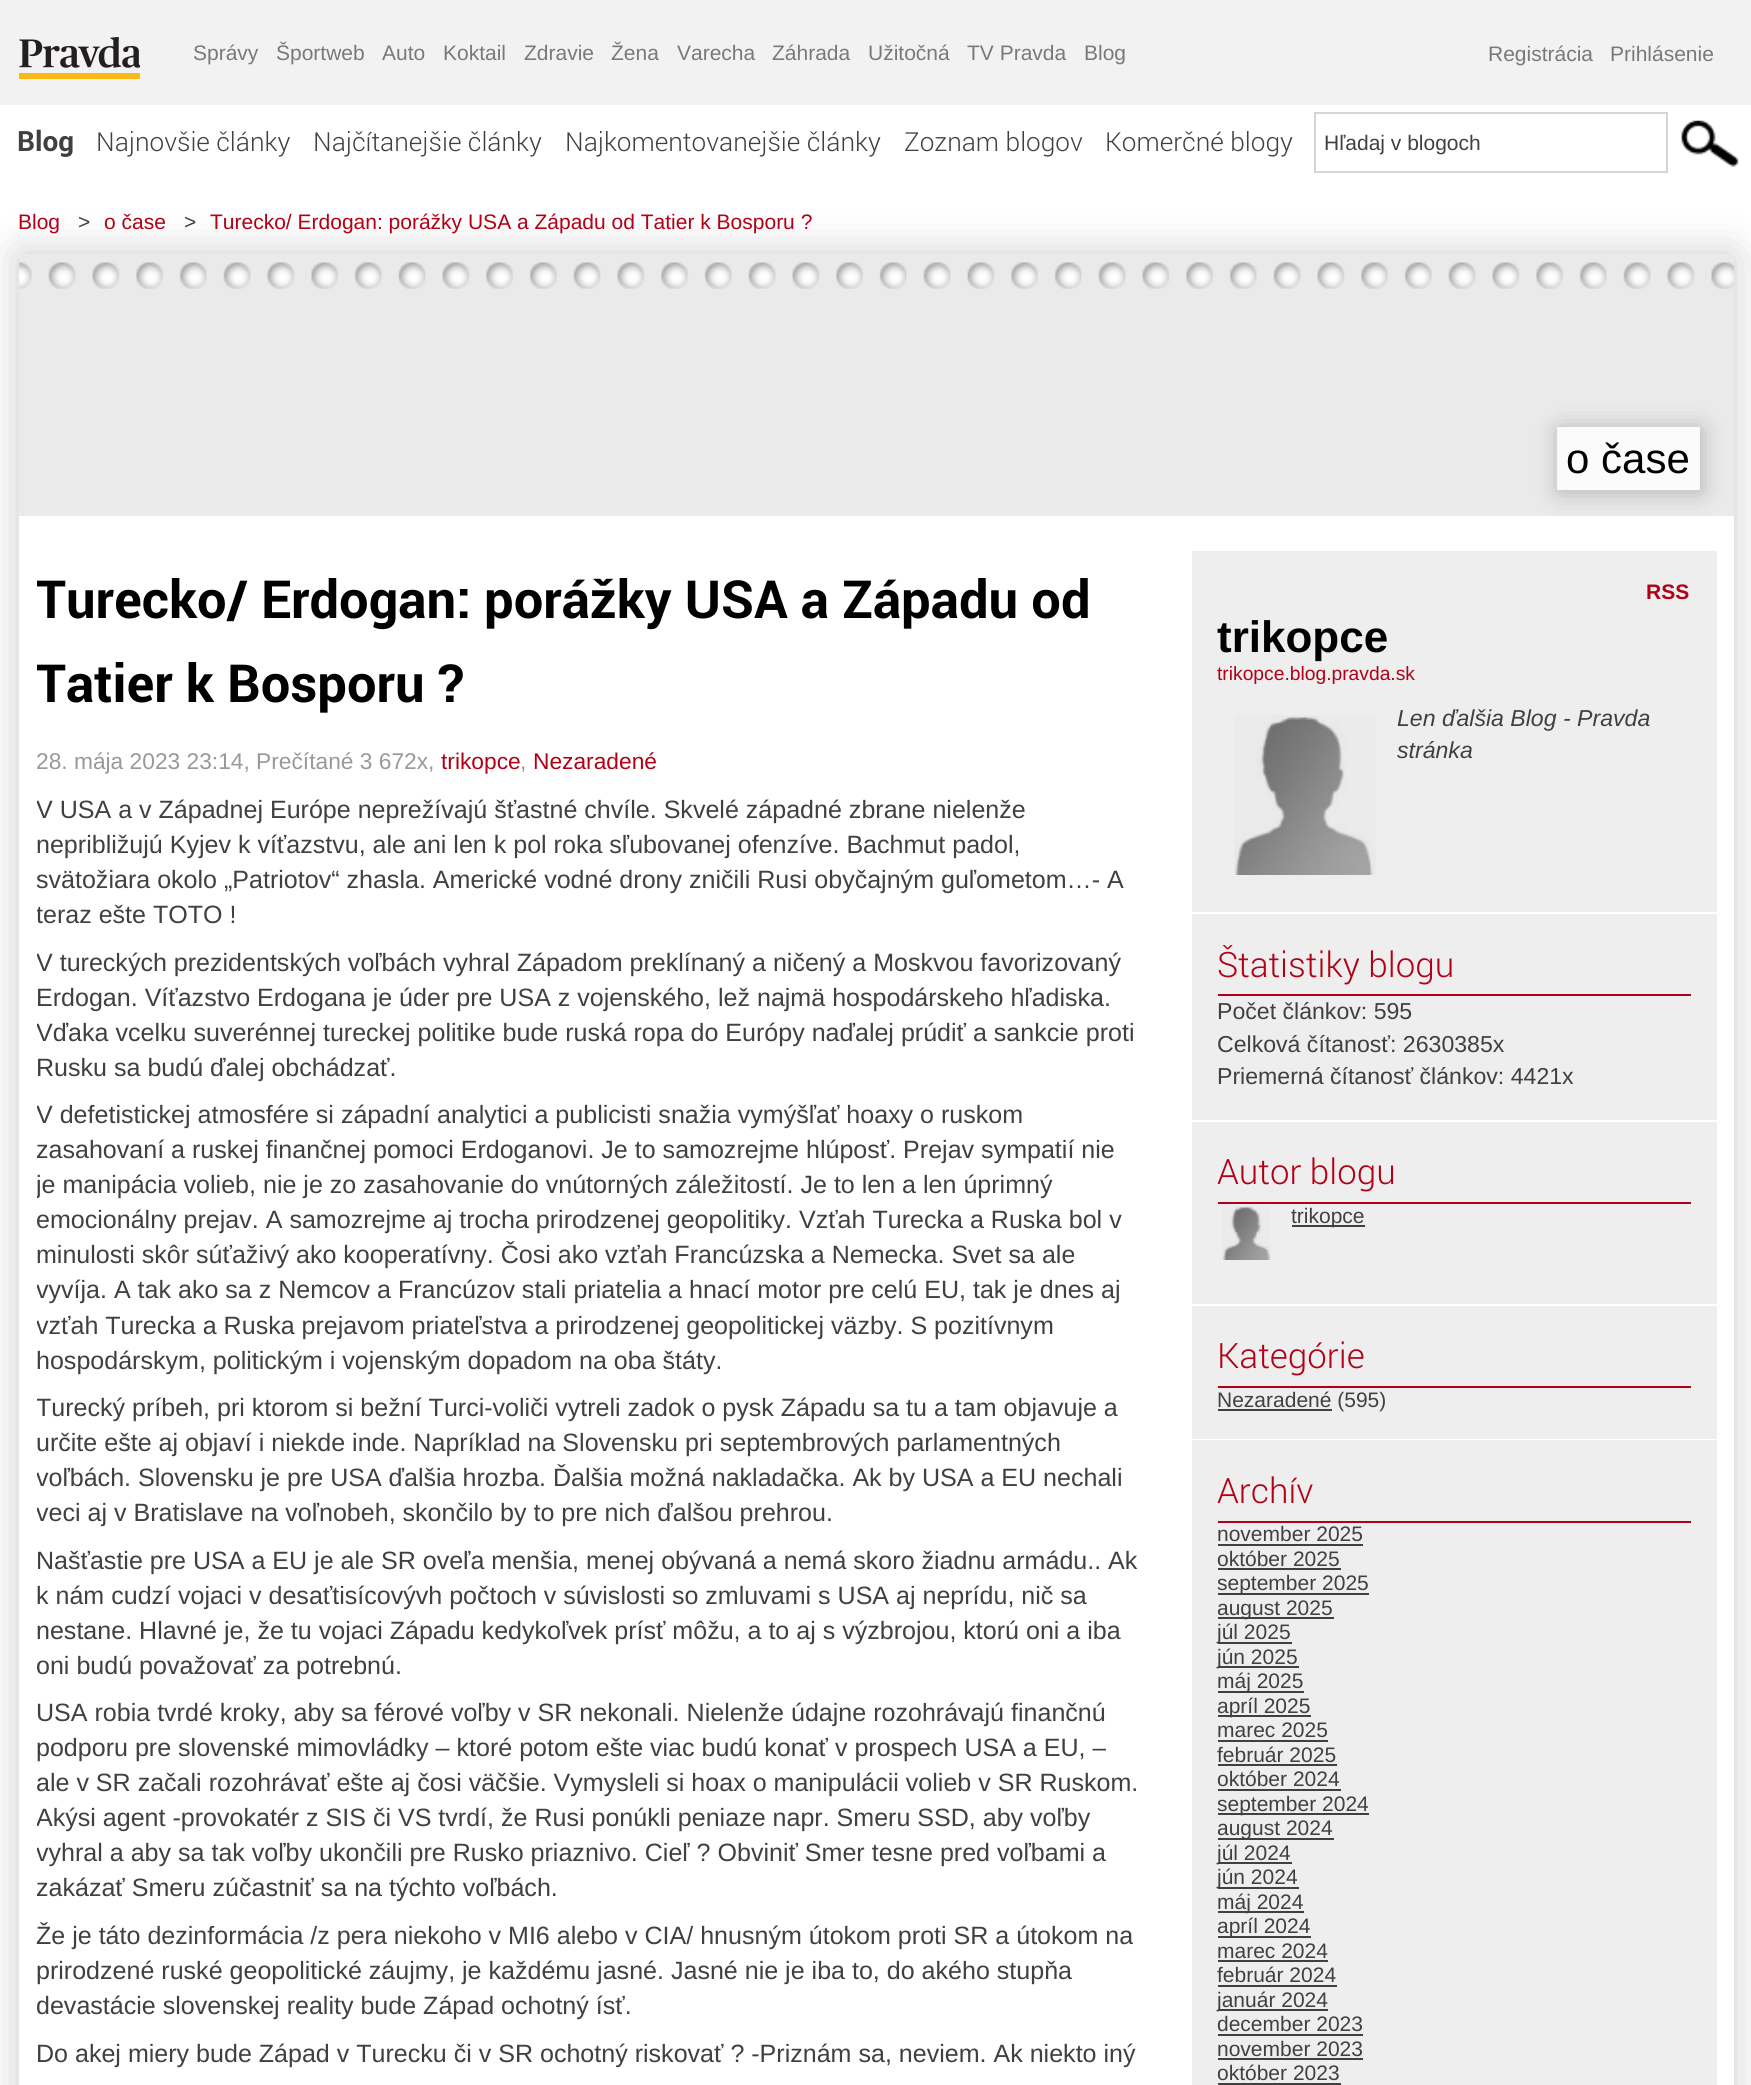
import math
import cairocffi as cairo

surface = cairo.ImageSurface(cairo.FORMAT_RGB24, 1751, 2085)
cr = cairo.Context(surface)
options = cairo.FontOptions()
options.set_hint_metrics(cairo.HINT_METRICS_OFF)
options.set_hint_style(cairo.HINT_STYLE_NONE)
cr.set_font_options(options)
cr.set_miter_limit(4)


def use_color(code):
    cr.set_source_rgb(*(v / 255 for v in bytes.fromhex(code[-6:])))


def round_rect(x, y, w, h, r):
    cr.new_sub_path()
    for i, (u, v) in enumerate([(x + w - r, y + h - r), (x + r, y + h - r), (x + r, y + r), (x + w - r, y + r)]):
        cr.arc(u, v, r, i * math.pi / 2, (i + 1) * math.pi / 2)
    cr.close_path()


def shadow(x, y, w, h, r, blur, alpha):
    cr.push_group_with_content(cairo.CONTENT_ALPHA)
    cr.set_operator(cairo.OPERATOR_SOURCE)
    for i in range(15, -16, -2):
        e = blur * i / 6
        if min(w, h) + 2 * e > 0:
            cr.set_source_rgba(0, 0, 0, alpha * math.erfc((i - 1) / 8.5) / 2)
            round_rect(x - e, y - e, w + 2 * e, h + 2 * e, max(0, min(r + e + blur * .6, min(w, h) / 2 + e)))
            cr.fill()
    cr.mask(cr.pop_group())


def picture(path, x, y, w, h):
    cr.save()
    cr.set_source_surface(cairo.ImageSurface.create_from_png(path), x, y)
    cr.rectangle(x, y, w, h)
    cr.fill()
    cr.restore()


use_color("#ffffff")
cr.paint()
use_color("#f2f2f2")
cr.rectangle(0, 0, 1751, 105)
cr.fill()
picture("img1.png", 19, 37, 121, 42)
cr.select_font_face("Liberation Sans")
cr.set_font_size(21)
use_color("#797979")
cr.move_to(193, 60)
cr.show_text("Správy")
cr.move_to(276, 60)
cr.show_text("Športweb")
cr.move_to(382, 60)
cr.show_text("Auto")
cr.move_to(443, 60)
cr.show_text("Koktail")
cr.move_to(524, 60)
cr.show_text("Zdravie")
cr.move_to(611, 60)
cr.show_text("Žena")
cr.move_to(677, 60)
cr.show_text("Varecha")
cr.move_to(772, 60)
cr.show_text("Záhrada")
cr.move_to(868, 60)
cr.show_text("Užitočná")
cr.move_to(967, 60)
cr.show_text("TV Pravda")
cr.move_to(1084, 60)
cr.show_text("Blog")
cr.move_to(1488, 61)
cr.show_text("Registrácia")
cr.move_to(1610, 61)
cr.show_text("Prihlásenie")
cr.select_font_face("Roboto", cairo.FONT_SLANT_NORMAL, cairo.FONT_WEIGHT_BOLD)
cr.set_font_size(28)
use_color("#404040")
cr.move_to(17, 151)
cr.show_text("Blog")
cr.select_font_face("Roboto Light")
cr.set_font_size(26.25)
cr.move_to(96, 151)
cr.show_text("Najnovšie články")
cr.move_to(313, 151)
cr.show_text("Najčítanejšie články")
cr.move_to(565, 151)
cr.show_text("Najkomentovanejšie články")
cr.move_to(904, 151)
cr.show_text("Zoznam blogov")
cr.move_to(1105, 151)
cr.show_text("Komerčné blogy")
cr.rectangle(1315, 113, 352, 59)
use_color("#d5d5d5")
cr.stroke()
cr.select_font_face("Liberation Sans")
cr.set_font_size(21)
use_color("#404040")
cr.move_to(1324, 150)
cr.show_text("Hľadaj v blogoch")
picture("img2.png", 1681, 120, 58, 47)
cr.save()
cr.set_fill_rule(cairo.FILL_RULE_EVEN_ODD)
cr.new_path()
cr.move_to(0, 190)
cr.line_to(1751, 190)
cr.line_to(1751, 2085)
cr.line_to(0, 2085)
cr.close_path()
cr.move_to(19, 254)
cr.line_to(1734, 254)
cr.line_to(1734, 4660)
cr.line_to(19, 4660)
cr.close_path()
cr.clip()
use_color("#323232")
shadow(19, 254, 1715, 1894, 0, 21, 0.25)
cr.restore()
use_color("#b00117")
cr.move_to(18, 229)
cr.show_text("Blog")
use_color("#404040")
cr.move_to(78, 229)
cr.show_text(">")
use_color("#b00117")
cr.move_to(104, 229)
cr.show_text("o čase")
use_color("#404040")
cr.move_to(184, 229)
cr.show_text(">")
use_color("#b00117")
cr.move_to(210, 229)
cr.show_text("Turecko/ Erdogan: porážky USA a Západu od Tatier k Bosporu ?")
use_color("#eaeaea")
cr.rectangle(19, 254, 1715, 262)
cr.fill()
picture("img3.png", 19, 262, 1716, 27)
cr.save()
cr.set_fill_rule(cairo.FILL_RULE_EVEN_ODD)
cr.new_path()
cr.move_to(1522, 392)
cr.line_to(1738, 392)
cr.line_to(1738, 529)
cr.line_to(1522, 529)
cr.close_path()
cr.move_to(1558, 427)
cr.line_to(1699, 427)
cr.line_to(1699, 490)
cr.line_to(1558, 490)
cr.close_path()
cr.clip()
use_color("#323232")
shadow(1559, 429, 142, 63, 0, 12, 0.3)
cr.restore()
cr.set_source_rgba(1, 1, 1, 0.79)
cr.rectangle(1557, 427, 143, 63)
cr.fill()
cr.set_font_size(42)
use_color("#000000")
cr.move_to(1566, 473)
cr.show_text("o čase")
cr.save()
cr.rectangle(37, 525, 1102, 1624)
cr.clip()
cr.select_font_face("Roboto", cairo.FONT_SLANT_NORMAL, cairo.FONT_WEIGHT_BOLD)
cr.set_font_size(52.5)
cr.move_to(36, 618)
cr.show_text("Turecko/ Erdogan:")
cr.restore()
cr.select_font_face("Roboto", cairo.FONT_SLANT_NORMAL, cairo.FONT_WEIGHT_BOLD)
cr.set_font_size(52.5)
cr.move_to(484, 618)
cr.show_text("porážky USA a Západu od")
cr.save()
cr.rectangle(37, 525, 1102, 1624)
cr.clip()
cr.move_to(36, 702)
cr.show_text("Tatier k Bosporu ?")
cr.restore()
cr.select_font_face("Liberation Sans")
cr.set_font_size(22.75)
use_color("#999999")
cr.move_to(36, 769)
cr.show_text("28. mája 2023 23:14, Prečítané 3 672x,")
use_color("#b00117")
cr.move_to(441, 769)
cr.show_text("trikopce")
use_color("#999999")
cr.move_to(520, 769)
cr.show_text(",")
use_color("#b00117")
cr.move_to(533, 769)
cr.show_text("Nezaradené")
cr.save()
cr.rectangle(37, 525, 1102, 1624)
cr.clip()
cr.set_font_size(25.05)
use_color("#404040")
cr.move_to(36, 818)
cr.show_text("V USA a v Západnej Európe neprežívajú šťastné chvíle. Skvelé západné zbrane nielenže")
cr.restore()
cr.set_font_size(25.05)
use_color("#404040")
cr.move_to(36, 853)
cr.show_text("nepribližujú Kyjev k víťazstvu, ale ani len k pol roka sľubovanej ofenzíve. Bachmut padol,")
cr.move_to(36, 888)
cr.show_text("svätožiara okolo „Patriotov“ zhasla. Americké vodné drony zničili Rusi obyčajným guľometom…- A")
cr.save()
cr.rectangle(37, 525, 1102, 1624)
cr.clip()
cr.move_to(36, 923)
cr.show_text("teraz ešte TOTO !")
cr.move_to(36, 971)
cr.show_text("V tureckých prezidentských voľbách vyhral Západom preklínaný a ničený a Moskvou favorizovaný")
cr.restore()
cr.move_to(36, 1006)
cr.show_text("Erdogan. Víťazstvo Erdogana je úder pre USA z vojenského, lež najmä hospodárskeho hľadiska.")
cr.save()
cr.rectangle(37, 525, 1102, 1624)
cr.clip()
cr.move_to(36, 1041)
cr.show_text("Vďaka vcelku suverénnej tureckej politike bude ruská ropa do Európy naďalej prúdiť a sankcie proti")
cr.restore()
cr.move_to(36, 1076)
cr.show_text("Rusku sa budú ďalej obchádzať.")
cr.save()
cr.rectangle(37, 525, 1102, 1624)
cr.clip()
cr.move_to(36, 1123)
cr.show_text("V defetistickej atmosfére si západní analytici a publicisti snažia vymýšľať hoaxy o ruskom")
cr.restore()
cr.move_to(36, 1158)
cr.show_text("zasahovaní a ruskej finančnej pomoci Erdoganovi. Je to samozrejme hlúposť. Prejav sympatií nie")
cr.save()
cr.rectangle(37, 525, 1102, 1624)
cr.clip()
cr.move_to(36, 1193)
cr.show_text("je manipácia volieb, nie je zo zasahovanie do vnútorných záležitostí. Je to len a len úprimný")
cr.restore()
cr.move_to(36, 1228)
cr.show_text("emocionálny prejav. A samozrejme aj trocha prirodzenej geopolitiky. Vzťah Turecka a Ruska bol v")
cr.move_to(36, 1263)
cr.show_text("minulosti skôr súťaživý ako kooperatívny. Čosi ako vzťah Francúzska a Nemecka. Svet sa ale")
cr.save()
cr.rectangle(37, 525, 1102, 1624)
cr.clip()
cr.move_to(36, 1298)
cr.show_text("vyvíja. A tak ako sa z Nemcov a Francúzov stali priatelia a hnací motor pre celú EU, tak je dnes aj")
cr.move_to(36, 1334)
cr.show_text("vzťah Turecka a Ruska prejavom priateľstva a prirodzenej geopolitickej väzby. S pozitívnym")
cr.restore()
cr.move_to(36, 1369)
cr.show_text("hospodárskym, politickým i vojenským dopadom na oba štáty.")
cr.save()
cr.rectangle(37, 525, 1102, 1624)
cr.clip()
cr.move_to(36, 1416)
cr.show_text("Turecký príbeh, pri ktorom si bežní Turci-voliči vytreli zadok o pysk Západu sa tu a tam objavuje a")
cr.restore()
cr.move_to(36, 1451)
cr.show_text("určite ešte aj objaví i niekde inde. Napríklad na Slovensku pri septembrových parlamentných")
cr.save()
cr.rectangle(37, 525, 1102, 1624)
cr.clip()
cr.move_to(36, 1486)
cr.show_text("voľbách. Slovensku je pre USA ďalšia hrozba. Ďalšia možná nakladačka. Ak by USA a EU nechali")
cr.move_to(36, 1521)
cr.show_text("veci aj v Bratislave na voľnobeh, skončilo by to pre nich ďalšou prehrou.")
cr.restore()
cr.move_to(36, 1569)
cr.show_text("Našťastie pre USA a EU je ale SR oveľa menšia, menej obývaná a nemá skoro žiadnu armádu.. Ak")
cr.move_to(36, 1604)
cr.show_text("k nám cudzí vojaci v desaťtisícovývh počtoch v súvislosti so zmluvami s USA aj neprídu, nič sa")
cr.move_to(36, 1639)
cr.show_text("nestane. Hlavné je, že tu vojaci Západu kedykoľvek prísť môžu, a to aj s výzbrojou, ktorú oni a iba")
cr.move_to(36, 1674)
cr.show_text("oni budú považovať za potrebnú.")
cr.move_to(36, 1721)
cr.show_text("USA robia tvrdé kroky, aby sa férové voľby v SR nekonali. Nielenže údajne rozohrávajú finančnú")
cr.move_to(36, 1756)
cr.show_text("podporu pre slovenské mimovládky – ktoré potom ešte viac budú konať v prospech USA a EU, –")
cr.move_to(36, 1791)
cr.show_text("ale v SR začali rozohrávať ešte aj čosi väčšie. Vymysleli si hoax o manipulácii volieb v SR Ruskom.")
cr.save()
cr.rectangle(37, 525, 1102, 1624)
cr.clip()
cr.move_to(36, 1826)
cr.show_text("Akýsi agent -provokatér z SIS či VS tvrdí, že Rusi ponúkli peniaze napr. Smeru SSD, aby voľby")
cr.move_to(36, 1861)
cr.show_text("vyhral a aby")
cr.restore()
cr.move_to(178, 1861)
cr.show_text("sa tak voľby ukončili pre Rusko priaznivo. Cieľ ? Obviniť Smer tesne pred voľbami a")
cr.move_to(36, 1896)
cr.show_text("zakázať Smeru zúčastniť sa na týchto voľbách.")
cr.move_to(36, 1944)
cr.show_text("Že je táto dezinformácia /z pera niekoho v MI6 alebo v CIA/ hnusným útokom proti SR a útokom na")
cr.move_to(36, 1979)
cr.show_text("prirodzené ruské geopolitické záujmy, je každému jasné. Jasné nie je iba to, do akého stupňa")
cr.move_to(36, 2014)
cr.show_text("devastácie slovenskej reality bude Západ ochotný ísť.")
cr.move_to(36, 2062)
cr.show_text("Do akej miery bude Západ v Turecku či v SR ochotný riskovať ? -Priznám sa, neviem. Ak niekto iný")
use_color("#eeeeee")
cr.rectangle(1192, 551, 525, 361)
cr.fill()
cr.select_font_face("Liberation Sans", cairo.FONT_SLANT_NORMAL, cairo.FONT_WEIGHT_BOLD)
cr.set_font_size(21)
use_color("#b00117")
cr.move_to(1646, 599)
cr.show_text("RSS")
cr.set_font_size(44)
use_color("#000000")
cr.move_to(1217, 652)
cr.show_text("trikopce")
cr.select_font_face("Liberation Sans")
cr.set_font_size(19.25)
use_color("#b00117")
cr.move_to(1217, 680)
cr.show_text("trikopce.blog.pravda.sk")
picture("img4.png", 1234, 715, 142, 160)
cr.select_font_face("Liberation Sans", cairo.FONT_SLANT_ITALIC)
cr.set_font_size(23.1)
use_color("#404040")
cr.move_to(1397, 726)
cr.show_text("Len ďalšia Blog - Pravda")
cr.move_to(1397, 758)
cr.show_text("stránka")
use_color("#eeeeee")
cr.rectangle(1192, 914, 525, 206)
cr.fill()
use_color("#b00117")
cr.rectangle(1218, 994, 473, 2)
cr.fill()
cr.select_font_face("Roboto Light")
cr.set_font_size(35)
cr.move_to(1217, 977)
cr.show_text("Štatistiky blogu")
cr.select_font_face("Liberation Sans")
cr.set_font_size(23.1)
use_color("#404040")
cr.move_to(1217, 1019)
cr.show_text("Počet článkov: 595")
cr.move_to(1217, 1052)
cr.show_text("Celková čítanosť: 2630385x")
cr.move_to(1217, 1084)
cr.show_text("Priemerná čítanosť článkov: 4421x")
use_color("#eeeeee")
cr.rectangle(1192, 1122, 525, 182)
cr.fill()
use_color("#b00117")
cr.rectangle(1218, 1202, 473, 2)
cr.fill()
cr.select_font_face("Roboto Light")
cr.set_font_size(35)
cr.move_to(1217, 1184)
cr.show_text("Autor blogu")
picture("img5.png", 1222, 1206, 49, 54)
use_color("#404040")
cr.rectangle(1292, 1225, 73, 2)
cr.fill()
cr.select_font_face("Liberation Sans")
cr.set_font_size(21)
cr.move_to(1291, 1223)
cr.show_text("trikopce")
use_color("#eeeeee")
cr.rectangle(1192, 1306, 525, 133)
cr.fill()
use_color("#b00117")
cr.rectangle(1218, 1386, 473, 2)
cr.fill()
cr.select_font_face("Roboto Light")
cr.set_font_size(35)
cr.move_to(1217, 1368)
cr.show_text("Kategórie")
use_color("#404040")
cr.rectangle(1218, 1409, 114, 2)
cr.fill()
cr.select_font_face("Liberation Sans")
cr.set_font_size(21)
cr.move_to(1217, 1407)
cr.show_text("Nezaradené (595)")
use_color("#eeeeee")
cr.rectangle(1192, 1440, 525, 645)
cr.fill()
use_color("#b00117")
cr.rectangle(1218, 1521, 473, 2)
cr.fill()
cr.select_font_face("Roboto Light")
cr.set_font_size(35)
cr.move_to(1217, 1503)
cr.show_text("Archív")
cr.select_font_face("Liberation Sans")
cr.set_font_size(21)
use_color("#404040")
cr.move_to(1217, 1541)
cr.show_text("november 2025")
cr.rectangle(1218, 1544, 145, 2)
cr.fill()
cr.move_to(1217, 1566)
cr.show_text("október 2025")
cr.rectangle(1218, 1568, 123, 2)
cr.fill()
cr.rectangle(1218, 1593, 151, 2)
cr.fill()
cr.move_to(1217, 1590)
cr.show_text("september 2025")
cr.rectangle(1218, 1617, 116, 2)
cr.fill()
cr.move_to(1217, 1615)
cr.show_text("august 2025")
cr.rectangle(1218, 1642, 74, 2)
cr.fill()
cr.move_to(1217, 1639)
cr.show_text("júl 2025")
cr.rectangle(1218, 1666, 81, 2)
cr.fill()
cr.move_to(1217, 1664)
cr.show_text("jún 2025")
cr.rectangle(1218, 1691, 86, 2)
cr.fill()
cr.move_to(1217, 1688)
cr.show_text("máj 2025")
cr.rectangle(1218, 1715, 93, 2)
cr.fill()
cr.move_to(1217, 1713)
cr.show_text("apríl 2025")
cr.move_to(1217, 1737)
cr.show_text("marec 2025")
cr.rectangle(1218, 1740, 110, 2)
cr.fill()
cr.move_to(1217, 1762)
cr.show_text("február 2025")
cr.rectangle(1218, 1764, 119, 2)
cr.fill()
cr.move_to(1217, 1786)
cr.show_text("október 2024")
cr.rectangle(1218, 1789, 123, 2)
cr.fill()
cr.rectangle(1218, 1813, 151, 2)
cr.fill()
cr.move_to(1217, 1811)
cr.show_text("september 2024")
cr.rectangle(1218, 1838, 116, 2)
cr.fill()
cr.move_to(1217, 1835)
cr.show_text("august 2024")
cr.rectangle(1218, 1862, 74, 2)
cr.fill()
cr.move_to(1217, 1860)
cr.show_text("júl 2024")
cr.rectangle(1218, 1887, 81, 2)
cr.fill()
cr.move_to(1217, 1884)
cr.show_text("jún 2024")
cr.rectangle(1218, 1911, 86, 2)
cr.fill()
cr.move_to(1217, 1909)
cr.show_text("máj 2024")
cr.rectangle(1218, 1936, 93, 2)
cr.fill()
cr.move_to(1217, 1933)
cr.show_text("apríl 2024")
cr.move_to(1217, 1958)
cr.show_text("marec 2024")
cr.rectangle(1218, 1960, 110, 2)
cr.fill()
cr.move_to(1217, 1982)
cr.show_text("február 2024")
cr.rectangle(1218, 1985, 119, 2)
cr.fill()
cr.rectangle(1218, 2009, 110, 2)
cr.fill()
cr.move_to(1217, 2007)
cr.show_text("január 2024")
cr.move_to(1217, 2031)
cr.show_text("december 2023")
cr.rectangle(1218, 2034, 145, 2)
cr.fill()
cr.move_to(1217, 2056)
cr.show_text("november 2023")
cr.rectangle(1218, 2058, 145, 2)
cr.fill()
cr.move_to(1217, 2080)
cr.show_text("október 2023")
cr.rectangle(1218, 2083, 123, 2)
cr.fill()
surface.write_to_png("result.png")
